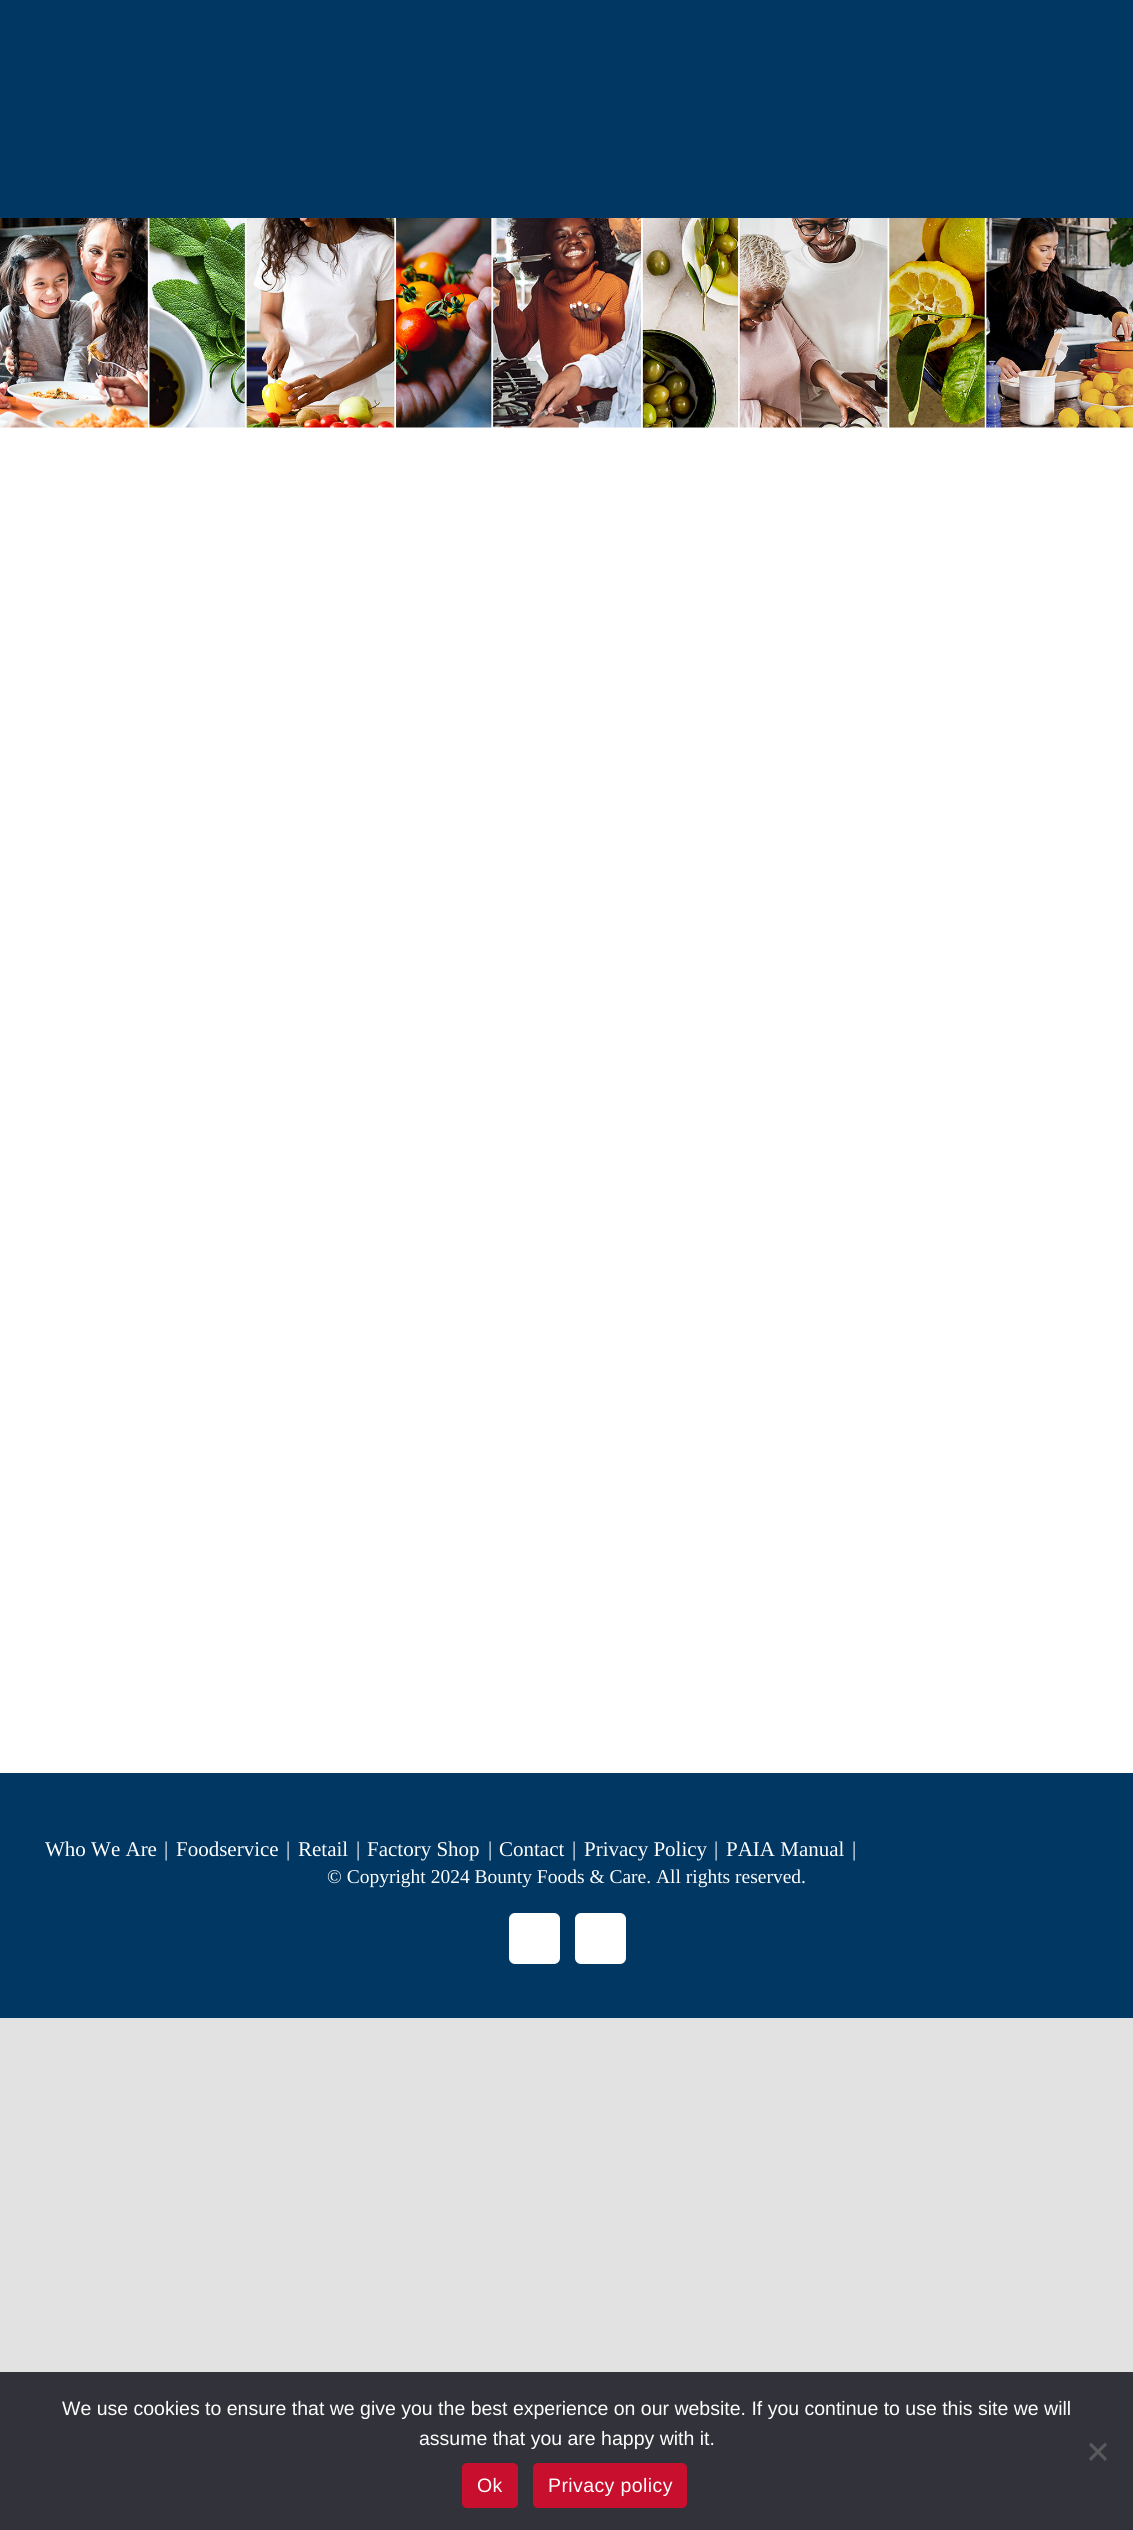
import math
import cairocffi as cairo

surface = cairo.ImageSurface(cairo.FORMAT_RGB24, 1133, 2530)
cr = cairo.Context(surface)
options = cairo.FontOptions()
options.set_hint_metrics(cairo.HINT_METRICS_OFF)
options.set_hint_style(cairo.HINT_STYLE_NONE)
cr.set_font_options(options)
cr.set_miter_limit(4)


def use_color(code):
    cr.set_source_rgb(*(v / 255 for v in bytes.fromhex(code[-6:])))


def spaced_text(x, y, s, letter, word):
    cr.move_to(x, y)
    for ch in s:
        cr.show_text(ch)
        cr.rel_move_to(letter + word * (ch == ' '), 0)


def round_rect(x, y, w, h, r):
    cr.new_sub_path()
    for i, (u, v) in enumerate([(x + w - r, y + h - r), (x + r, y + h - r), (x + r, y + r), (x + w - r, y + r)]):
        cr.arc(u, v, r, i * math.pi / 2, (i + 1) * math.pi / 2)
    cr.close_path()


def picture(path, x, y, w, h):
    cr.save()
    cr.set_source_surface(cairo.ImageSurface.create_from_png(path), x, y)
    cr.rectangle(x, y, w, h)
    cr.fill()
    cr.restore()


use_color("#e2e2e2")
cr.paint()
use_color("#ffffff")
cr.rectangle(0, 427, 1133, 1346)
cr.fill()
use_color("#003763")
cr.rectangle(0, 0, 1133, 218)
cr.fill()
picture("img1.png", 0, 218, 1133, 210)
cr.rectangle(0, 1773, 1133, 245)
cr.fill()
cr.select_font_face("Liberation Serif")
cr.set_font_size(21)
use_color("#ffffff")
cr.move_to(45, 1856)
cr.show_text("Who We Are")
cr.move_to(164, 1856)
cr.show_text("|")
cr.move_to(176, 1856)
cr.show_text("Foodservice")
cr.move_to(286, 1856)
cr.show_text("|")
cr.move_to(298, 1856)
cr.show_text("Retail")
cr.move_to(356, 1856)
cr.show_text("|")
cr.move_to(367, 1856)
cr.show_text("Factory Shop")
cr.move_to(488, 1856)
cr.show_text("|")
cr.move_to(499, 1856)
cr.show_text("Contact")
cr.move_to(572, 1856)
cr.show_text("|")
cr.move_to(584, 1856)
cr.show_text("Privacy Policy")
cr.move_to(714, 1856)
cr.show_text("|")
cr.move_to(726, 1856)
cr.show_text("PAIA Manual")
cr.move_to(852, 1856)
cr.show_text("|")
cr.set_font_size(19.5)
cr.move_to(327, 1883)
cr.show_text("© Copyright 2024 Bounty Foods & Care. All rights reserved.")
round_rect(510, 1914, 49, 49, 5)
cr.fill_preserve()
cr.stroke()
round_rect(576, 1914, 49, 49, 5)
cr.fill_preserve()
cr.stroke()
use_color("#32323a")
cr.rectangle(0, 2372, 1133, 158)
cr.fill()
cr.select_font_face("Liberation Sans")
use_color("#ffffff")
cr.move_to(62, 2415)
cr.show_text("We use cookies to ensure that we give you the best experience on our website. If you continue to use this site we will")
cr.move_to(419, 2445)
cr.show_text("assume that you are happy with it.")
use_color("#59595d")
cr.new_path()
cr.move_to(1105, 2442.5)
cr.line_to(1107, 2445)
cr.line_to(1091, 2461)
cr.line_to(1089, 2458.5)
cr.close_path()
cr.fill()
cr.new_path()
cr.move_to(1089, 2445)
cr.line_to(1091, 2442.5)
cr.line_to(1107, 2458.5)
cr.line_to(1105, 2461)
cr.close_path()
cr.fill()
use_color("#c8102e")
round_rect(462, 2463, 56, 45, 5)
cr.fill()
use_color("#ffffff")
spaced_text(477, 2492, "Ok", 0.4, 0)
use_color("#c8102e")
round_rect(533, 2463, 154, 45, 5)
cr.fill()
use_color("#ffffff")
spaced_text(548, 2492, "Privacy policy", 0.4, 0)
surface.write_to_png("result.png")
